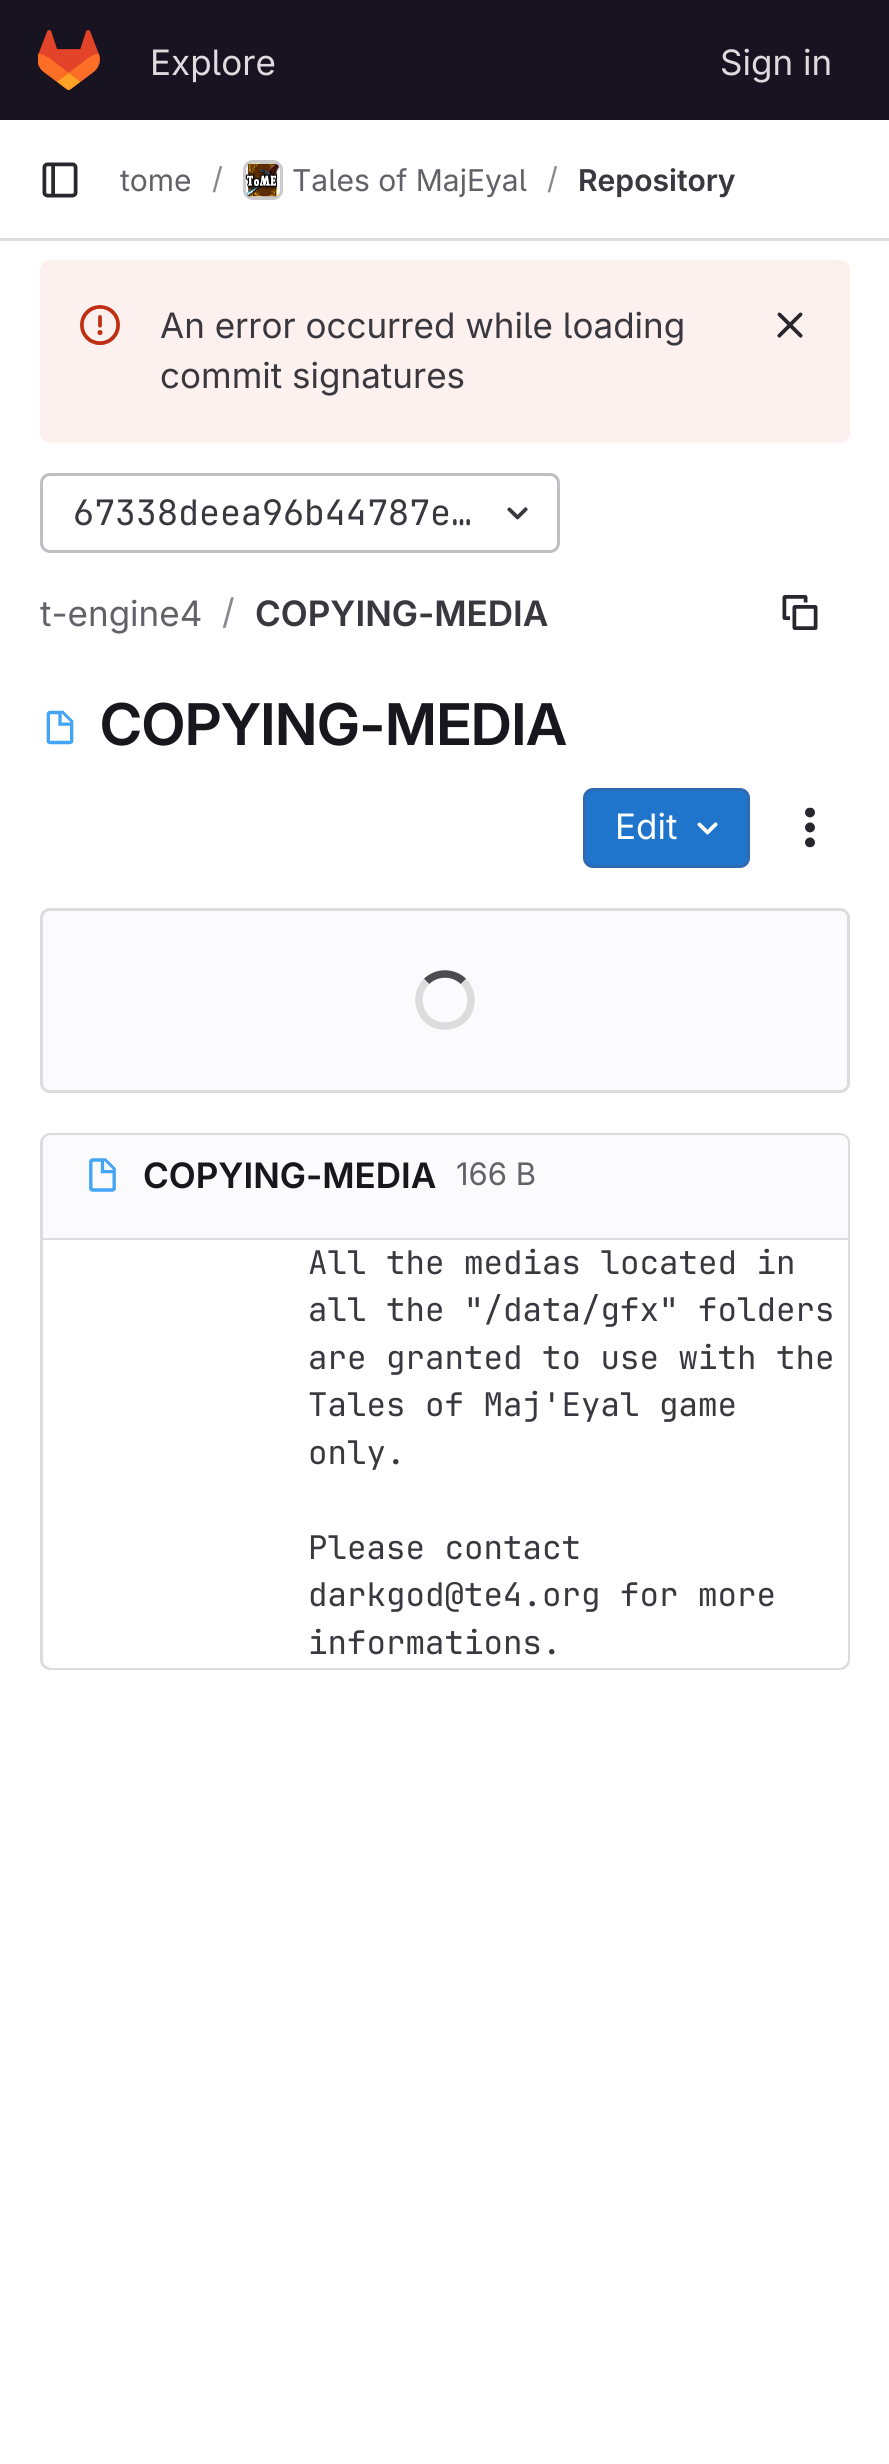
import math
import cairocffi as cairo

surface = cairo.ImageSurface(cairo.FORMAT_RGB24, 889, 2464)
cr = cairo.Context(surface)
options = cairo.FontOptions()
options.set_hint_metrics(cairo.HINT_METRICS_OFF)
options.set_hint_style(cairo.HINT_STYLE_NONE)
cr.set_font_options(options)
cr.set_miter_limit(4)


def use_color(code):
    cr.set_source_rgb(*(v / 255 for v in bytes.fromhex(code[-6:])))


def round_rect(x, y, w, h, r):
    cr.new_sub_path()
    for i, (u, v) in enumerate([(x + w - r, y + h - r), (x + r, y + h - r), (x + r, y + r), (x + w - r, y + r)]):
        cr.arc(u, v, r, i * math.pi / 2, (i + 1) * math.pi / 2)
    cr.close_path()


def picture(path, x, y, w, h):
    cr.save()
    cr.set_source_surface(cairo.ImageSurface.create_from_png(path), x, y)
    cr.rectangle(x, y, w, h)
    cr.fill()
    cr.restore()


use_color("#ffffff")
cr.paint()
use_color("#171321")
cr.rectangle(0, 0, 889, 120)
cr.fill()
picture("img1.png", 38, 30, 62, 60)
cr.select_font_face("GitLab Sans")
cr.set_font_size(35)
use_color("#dcdcde")
cr.move_to(150, 75)
cr.show_text("Explore")
cr.move_to(720, 75)
cr.show_text("Sign in")
cr.rectangle(0, 238, 889, 3)
cr.fill()
picture("img2.png", 42, 162, 36, 36)
cr.set_font_size(30)
use_color("#626168")
cr.move_to(120, 191)
cr.show_text("tome")
use_color("#89888d")
cr.move_to(212, 189)
cr.show_text("/")
round_rect(244.5, 161.5, 37, 37, 8.5)
use_color("#dcdcde")
cr.set_line_width(3)
cr.stroke()
picture("img3.png", 245, 163, 35, 34)
round_rect(244.5, 161.5, 37, 37, 8.5)
cr.set_source_rgba(0.02, 0.02, 0.024, 0.08)
cr.stroke()
use_color("#626168")
cr.move_to(292, 191)
cr.show_text("Tales of MajEyal")
use_color("#89888d")
cr.move_to(547, 189)
cr.show_text("/")
cr.select_font_face("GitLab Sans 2 SemiBold")
use_color("#3a383f")
cr.move_to(578, 191)
cr.show_text("Repository")
use_color("#fcf1ef")
round_rect(40, 260, 810, 183, 10)
cr.fill()
picture("img4.png", 80, 305, 40, 40)
cr.select_font_face("GitLab Sans")
cr.set_font_size(35)
use_color("#3a383f")
cr.move_to(160, 338)
cr.show_text("An error occurred while loading")
cr.move_to(160, 388)
cr.show_text("commit signatures")
picture("img5.png", 777, 312, 26, 26)
round_rect(41.5, 474.5, 517, 77, 8.5)
use_color("#bfbfc3")
cr.stroke()
cr.select_font_face("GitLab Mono")
use_color("#3a383f")
cr.move_to(73, 525)
cr.show_text("67338deea96b44787e…")
picture("img6.png", 507, 507, 21, 13)
cr.select_font_face("GitLab Sans")
use_color("#626168")
cr.move_to(40, 626)
cr.show_text("t-engine4")
use_color("#89888d")
cr.move_to(222, 624)
cr.show_text("/")
cr.select_font_face("GitLab Sans 2 SemiBold")
use_color("#3a383f")
cr.move_to(255, 626)
cr.show_text("COPYING-MEDIA")
picture("img7.png", 782, 595, 36, 35)
picture("img8.png", 46, 710, 28, 35)
cr.select_font_face("GitLab Sans SemiBold")
cr.set_font_size(57.5)
use_color("#18171d")
cr.move_to(100, 745)
cr.show_text("COPYING-MEDIA")
use_color("#1f75cb")
round_rect(584.5, 789.5, 164, 77, 8.5)
cr.fill_preserve()
use_color("#2f68b4")
cr.stroke()
cr.select_font_face("GitLab Sans")
cr.set_font_size(35)
use_color("#ffffff")
cr.move_to(615, 839)
cr.show_text("Edit")
picture("img9.png", 697, 822, 21, 13)
picture("img10.png", 805, 807, 10, 41)
use_color("#fbfafd")
round_rect(41.5, 909.5, 807, 182, 8.5)
cr.fill_preserve()
use_color("#dcdcde")
cr.stroke()
cr.new_path()
cr.move_to(426.5, 981.5)
cr.curve_to(436.5, 971.5, 453.5, 971.5, 463.5, 981.5)
use_color("#4c4b51")
cr.set_line_width(7.5)
cr.stroke()
cr.new_path()
cr.move_to(463.5, 981.5)
cr.curve_to(468.5, 986.5, 471, 993, 471, 1000)
cr.curve_to(471, 1031.5, 425.5, 1036, 419.5, 1005)
cr.curve_to(417.5, 996.5, 420.5, 987.5, 426.5, 981.5)
use_color("#dcdcde")
cr.stroke()
round_rect(41.5, 1134.5, 807, 534, 8.5)
cr.set_line_width(3)
cr.stroke()
use_color("#fbfafd")
cr.new_path()
cr.move_to(51, 1135)
cr.line_to(840, 1135)
cr.curve_to(844.5, 1135, 848, 1138.5, 848, 1143)
cr.line_to(848, 1240)
cr.line_to(43, 1240)
cr.line_to(43, 1143)
cr.curve_to(43, 1138.5, 46.5, 1135, 51, 1135)
cr.close_path()
cr.fill()
use_color("#dcdcde")
cr.rectangle(43, 1238, 805, 2)
cr.fill()
picture("img11.png", 89, 1158, 27, 34)
cr.select_font_face("GitLab Sans 2 SemiBold")
use_color("#18171d")
cr.move_to(143, 1188)
cr.show_text("COPYING-MEDIA")
cr.select_font_face("GitLab Sans")
cr.set_font_size(31)
use_color("#626168")
cr.move_to(456, 1185)
cr.show_text("166 B")
use_color("#ffffff")
cr.new_path()
cr.move_to(43, 1240)
cr.line_to(848, 1240)
cr.line_to(848, 1658)
cr.curve_to(848, 1663.5, 843.5, 1668, 838, 1668)
cr.line_to(53, 1668)
cr.curve_to(47.5, 1668, 43, 1663.5, 43, 1658)
cr.close_path()
cr.fill()
cr.new_path()
cr.move_to(43, 1240)
cr.line_to(283, 1240)
cr.line_to(283, 1668)
cr.line_to(53, 1668)
cr.curve_to(47.5, 1668, 43, 1663.5, 43, 1658)
cr.close_path()
cr.fill()
cr.new_path()
cr.move_to(303, 1240)
cr.line_to(848, 1240)
cr.line_to(848, 1658)
cr.curve_to(848, 1663.5, 843.5, 1668, 838, 1668)
cr.line_to(303, 1668)
cr.close_path()
cr.fill()
cr.save()
cr.new_path()
cr.move_to(43, 1240)
cr.line_to(848, 1240)
cr.line_to(848, 1658)
cr.curve_to(848, 1663.5, 843.5, 1668, 838, 1668)
cr.line_to(53, 1668)
cr.curve_to(47.5, 1668, 43, 1663.5, 43, 1658)
cr.close_path()
cr.clip()
round_rect(308, 1240, 545, 428, 10)
cr.fill()
cr.restore()
cr.select_font_face("GitLab Mono")
cr.set_font_size(32.5)
use_color("#3a383f")
cr.move_to(308, 1274)
cr.show_text("All the medias located in")
cr.move_to(308, 1321)
cr.show_text("all the \"/data/gfx\" folders")
cr.move_to(308, 1369)
cr.show_text("are granted to use with the")
cr.move_to(308, 1416)
cr.show_text("Tales of Maj'Eyal game")
cr.move_to(308, 1464)
cr.show_text("only.")
cr.move_to(308, 1559)
cr.show_text("Please contact")
cr.move_to(308, 1606)
cr.show_text("darkgod@te4.org for more")
cr.move_to(308, 1654)
cr.show_text("informations.")
surface.write_to_png("result.png")
